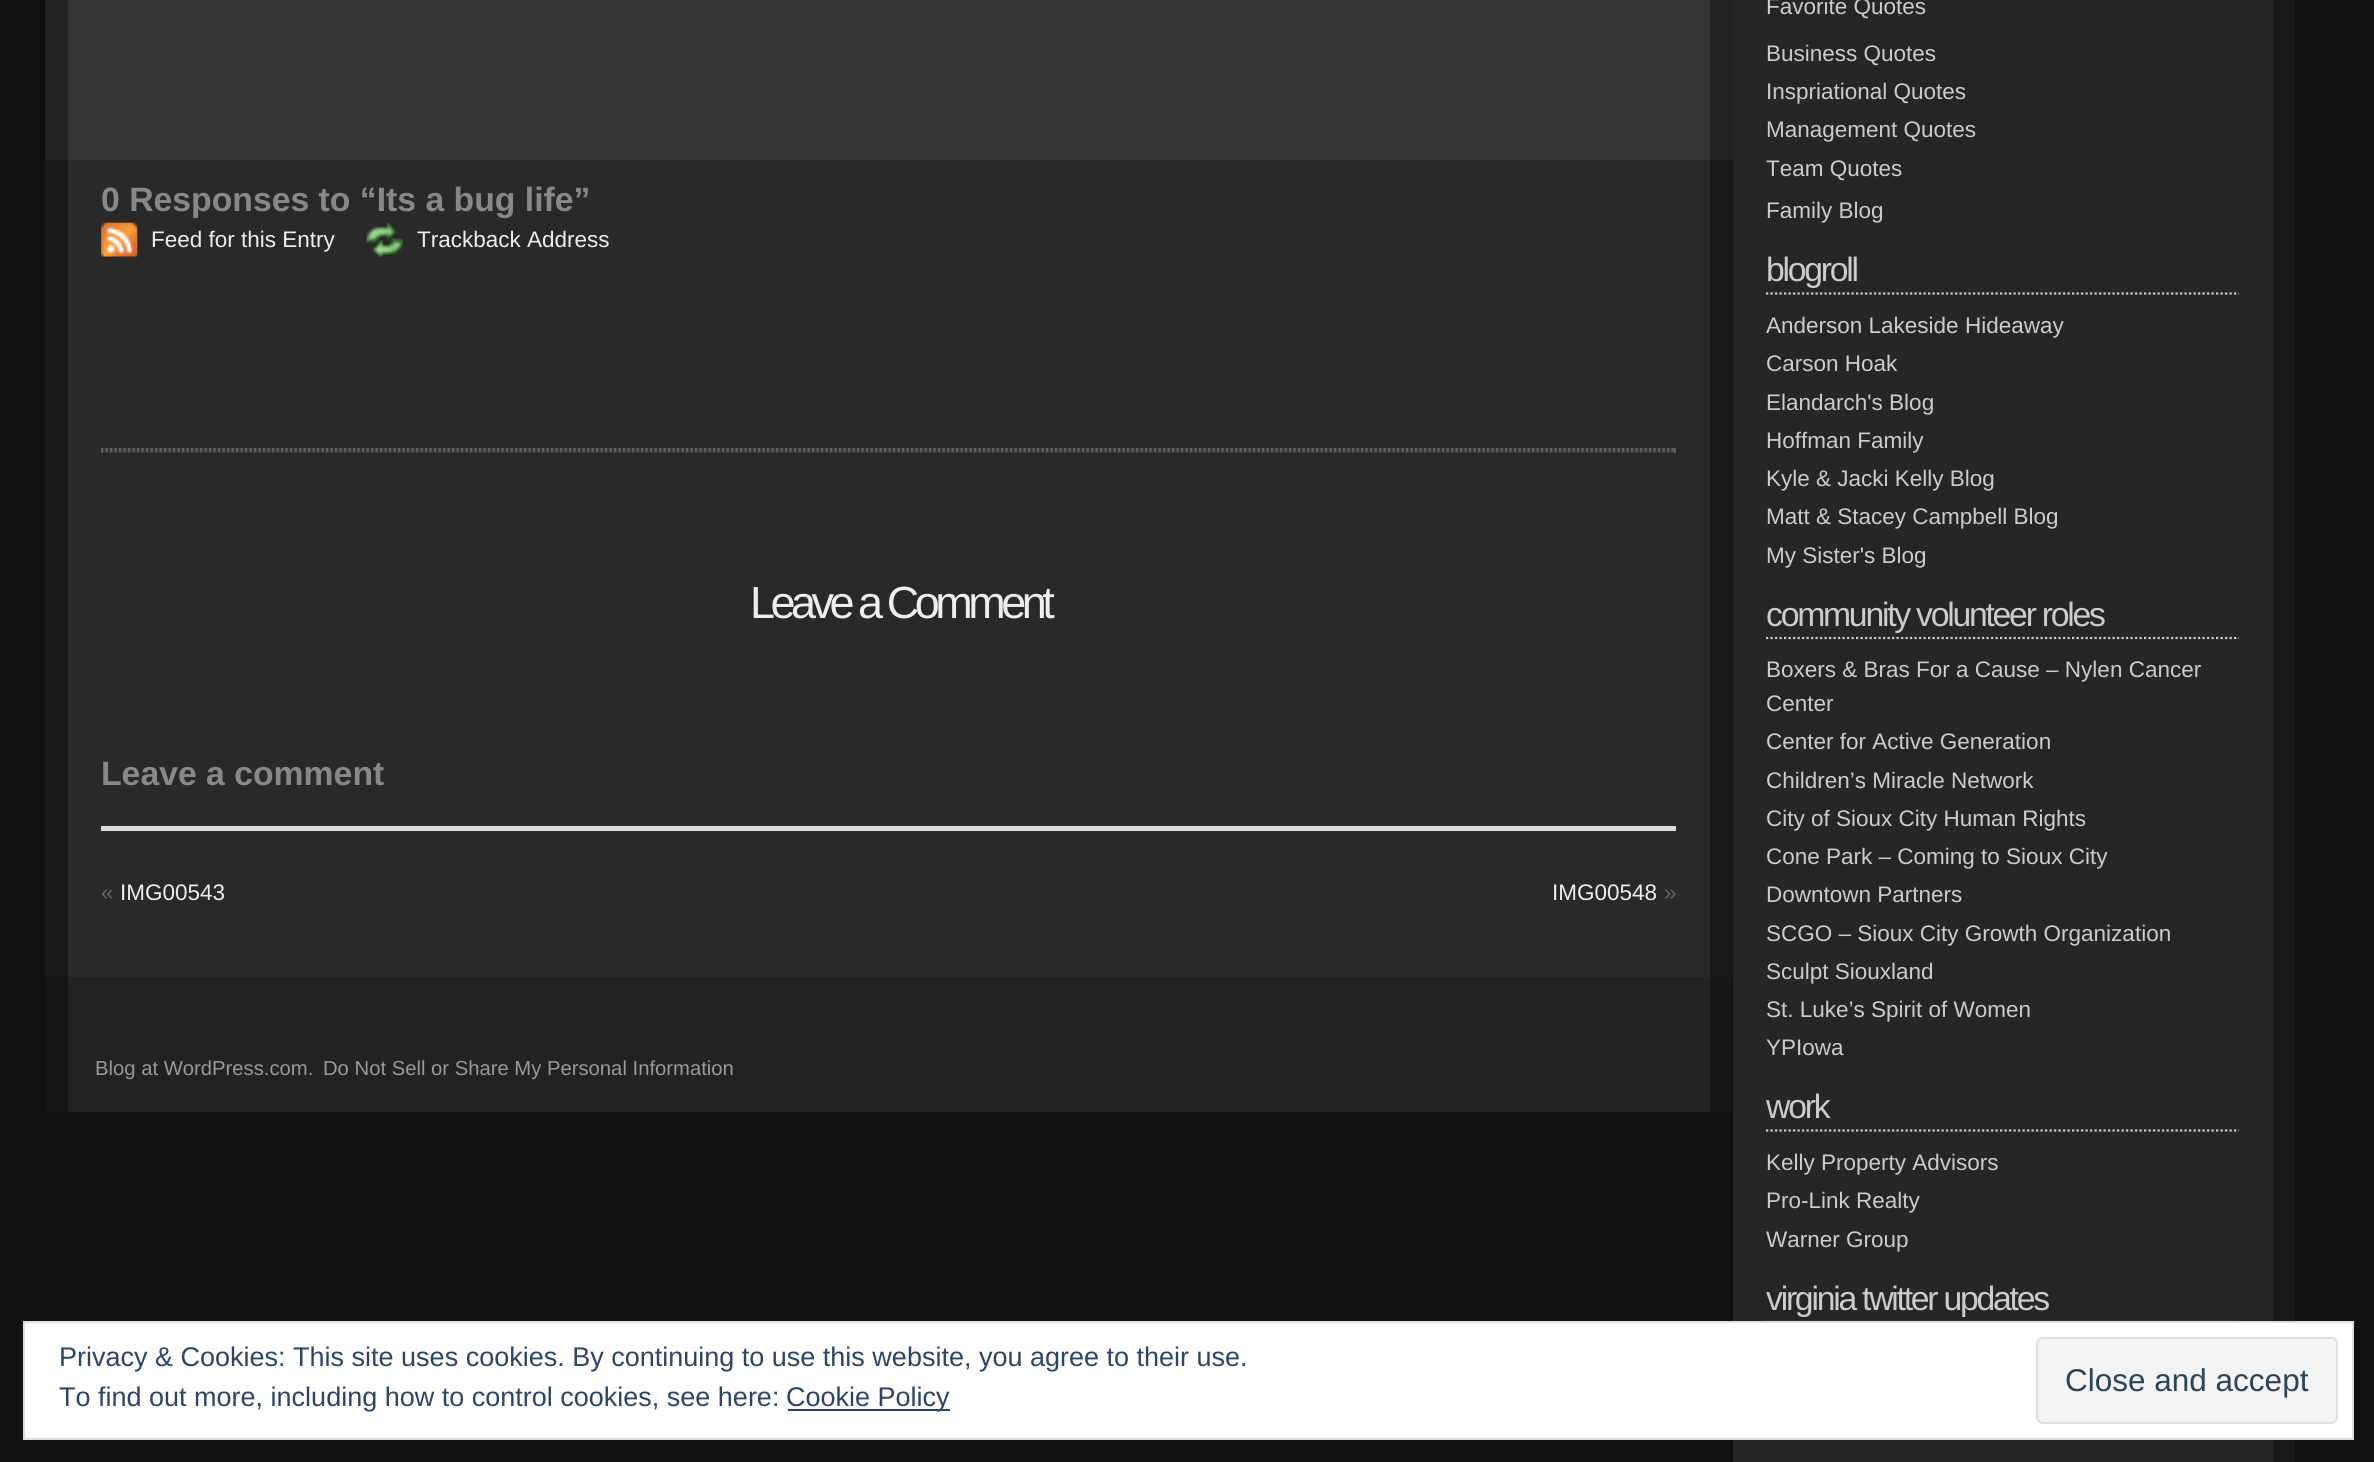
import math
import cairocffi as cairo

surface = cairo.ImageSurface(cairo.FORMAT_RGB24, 2374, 1462)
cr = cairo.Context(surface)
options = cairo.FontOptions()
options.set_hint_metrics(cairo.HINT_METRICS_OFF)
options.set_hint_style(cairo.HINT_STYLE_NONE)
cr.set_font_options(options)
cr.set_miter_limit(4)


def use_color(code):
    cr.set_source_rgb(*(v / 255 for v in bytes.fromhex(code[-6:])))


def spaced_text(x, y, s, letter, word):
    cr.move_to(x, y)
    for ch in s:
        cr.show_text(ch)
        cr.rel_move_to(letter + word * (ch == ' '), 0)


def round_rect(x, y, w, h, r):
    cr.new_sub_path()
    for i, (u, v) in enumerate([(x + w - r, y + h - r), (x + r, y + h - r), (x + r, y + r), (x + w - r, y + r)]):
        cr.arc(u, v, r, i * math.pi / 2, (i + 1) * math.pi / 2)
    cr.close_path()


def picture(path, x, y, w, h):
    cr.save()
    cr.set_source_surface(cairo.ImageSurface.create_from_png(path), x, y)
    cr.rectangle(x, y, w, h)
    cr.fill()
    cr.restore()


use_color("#111111")
cr.paint()
use_color("#333333")
cr.rectangle(68, 0, 1642, 160)
cr.fill()
use_color("#222222")
cr.rectangle(1710, 0, 23, 160)
cr.fill()
cr.rectangle(45, 0, 23, 160)
cr.fill()
use_color("#262626")
cr.rectangle(1733, 0, 540, 1462)
cr.fill()
use_color("#191919")
cr.rectangle(2273, 0, 22, 1462)
cr.fill()
cr.select_font_face("Liberation Sans")
cr.set_font_size(22.5)
use_color("#cccccc")
cr.move_to(1766, 14)
cr.show_text("Favorite Quotes")
cr.move_to(1766, 61)
cr.show_text("Business Quotes")
cr.move_to(1766, 99)
cr.show_text("Inspriational Quotes")
cr.move_to(1766, 137)
cr.show_text("Management Quotes")
cr.move_to(1766, 176)
cr.show_text("Team Quotes")
cr.move_to(1766, 218)
cr.show_text("Family Blog")
cr.new_path()
cr.move_to(1766, 293.5)
cr.line_to(2239, 293.5)
cr.set_line_width(2.2)
cr.set_dash([2.25, 2.25])
cr.stroke()
cr.set_font_size(33.75)
spaced_text(1766, 281, "blogroll", -2.25, 0)
cr.set_font_size(22.5)
cr.move_to(1766, 333)
cr.show_text("Anderson Lakeside Hideaway")
cr.move_to(1766, 371)
cr.show_text("Carson Hoak")
cr.move_to(1766, 410)
cr.show_text("Elandarch's Blog")
cr.move_to(1766, 448)
cr.show_text("Hoffman Family")
cr.move_to(1766, 486)
cr.show_text("Kyle & Jacki Kelly Blog")
cr.move_to(1766, 524)
cr.show_text("Matt & Stacey Campbell Blog")
cr.move_to(1766, 563)
cr.show_text("My Sister's Blog")
cr.new_path()
cr.move_to(1766, 638)
cr.line_to(2239, 638)
cr.stroke()
cr.set_font_size(33.75)
spaced_text(1766, 626, "community volunteer roles", -2.25, 0)
cr.set_font_size(22.5)
cr.move_to(1766, 677)
cr.show_text("Boxers & Bras For a Cause – Nylen Cancer")
cr.move_to(1766, 711)
cr.show_text("Center")
cr.move_to(1766, 749)
cr.show_text("Center for Active Generation")
cr.move_to(1766, 788)
cr.show_text("Children’s Miracle Network")
cr.move_to(1766, 826)
cr.show_text("City of Sioux City Human Rights")
cr.move_to(1766, 864)
cr.show_text("Cone Park – Coming to Sioux City")
cr.move_to(1766, 902)
cr.show_text("Downtown Partners")
cr.move_to(1766, 941)
cr.show_text("SCGO – Sioux City Growth Organization")
cr.move_to(1766, 979)
cr.show_text("Sculpt Siouxland")
cr.move_to(1766, 1017)
cr.show_text("St. Luke’s Spirit of Women")
cr.move_to(1766, 1055)
cr.show_text("YPIowa")
cr.new_path()
cr.move_to(1766, 1130.5)
cr.line_to(2239, 1130.5)
cr.stroke()
cr.set_font_size(33.75)
spaced_text(1766, 1118, "work", -2.25, 0)
cr.set_font_size(22.5)
cr.move_to(1766, 1170)
cr.show_text("Kelly Property Advisors")
cr.move_to(1766, 1208)
cr.show_text("Pro-Link Realty")
cr.move_to(1766, 1247)
cr.show_text("Warner Group")
cr.new_path()
cr.move_to(1766, 1322)
cr.line_to(2239, 1322)
cr.stroke()
cr.set_font_size(33.75)
spaced_text(1766, 1310, "virginia twitter updates", -2.25, 0)
use_color("#292929")
cr.rectangle(68, 160, 1642, 817)
cr.fill()
use_color("#191919")
cr.rectangle(1710, 160, 23, 817)
cr.fill()
cr.rectangle(45, 160, 23, 817)
cr.fill()
cr.select_font_face("Liberation Sans", cairo.FONT_SLANT_NORMAL, cairo.FONT_WEIGHT_BOLD)
use_color("#888888")
cr.move_to(101, 211)
cr.show_text("0 Responses to “Its a bug life”")
picture("img1.png", 101, 222, 37, 35)
cr.select_font_face("Liberation Sans")
cr.set_font_size(22.5)
use_color("#eeeeee")
cr.move_to(151, 247)
cr.show_text("Feed for this Entry")
picture("img2.png", 366, 222, 37, 35)
cr.move_to(417, 247)
cr.show_text("Trackback Address")
use_color("#363636")
cr.rectangle(101, 448, 1575, 5)
cr.fill()
cr.new_path()
cr.move_to(101, 449)
cr.line_to(1676, 449)
use_color("#606060")
cr.stroke()
cr.rectangle(1674, 448, 2, 5)
cr.fill()
cr.new_path()
cr.move_to(101, 451)
cr.line_to(1676, 451)
cr.stroke()
cr.rectangle(101, 448, 2, 5)
cr.fill()
cr.set_font_size(45)
use_color("#eeeeee")
spaced_text(750, 618, "Leave a Comment", -4.5, 0)
cr.select_font_face("Liberation Sans", cairo.FONT_SLANT_NORMAL, cairo.FONT_WEIGHT_BOLD)
cr.set_font_size(33.75)
use_color("#888888")
cr.move_to(101, 785)
cr.show_text("Leave a comment")
use_color("#dcdcde")
cr.rectangle(101, 826, 1575, 5)
cr.fill()
cr.select_font_face("Liberation Sans")
cr.set_font_size(22.5)
use_color("#666666")
cr.move_to(101, 900)
cr.show_text("«")
use_color("#eeeeee")
cr.move_to(120, 900)
cr.show_text("IMG00543")
cr.move_to(1552, 900)
cr.show_text("IMG00548")
use_color("#666666")
cr.move_to(1664, 900)
cr.show_text("»")
use_color("#222222")
cr.rectangle(68, 977, 1642, 135)
cr.fill()
use_color("#161616")
cr.rectangle(1710, 977, 23, 135)
cr.fill()
cr.rectangle(45, 977, 23, 135)
cr.fill()
cr.set_font_size(20.25)
use_color("#999999")
cr.move_to(95, 1075)
cr.show_text("Blog at WordPress.com.")
cr.move_to(323, 1075)
cr.show_text("Do Not Sell or Share My Personal Information")
use_color("#ffffff")
cr.rectangle(24, 1322, 2329, 117)
cr.fill_preserve()
use_color("#dedede")
cr.set_line_width(2)
cr.set_dash([])
cr.stroke()
cr.set_font_size(27)
use_color("#2e4467")
cr.move_to(59, 1366)
cr.show_text("Privacy & Cookies: This site uses cookies. By continuing to use this website, you agree to their use.")
cr.move_to(59, 1406)
cr.show_text("To find out more, including how to control cookies, see here:")
cr.rectangle(788, 1409, 162, 2)
cr.fill()
cr.move_to(786, 1406)
cr.show_text("Cookie Policy")
use_color("#f3f3f3")
round_rect(2037, 1338, 300, 85, 6)
cr.fill_preserve()
use_color("#dedede")
cr.stroke()
cr.set_font_size(31.5)
use_color("#2e4453")
cr.move_to(2065, 1391)
cr.show_text("Close and accept")
surface.write_to_png("result.png")
